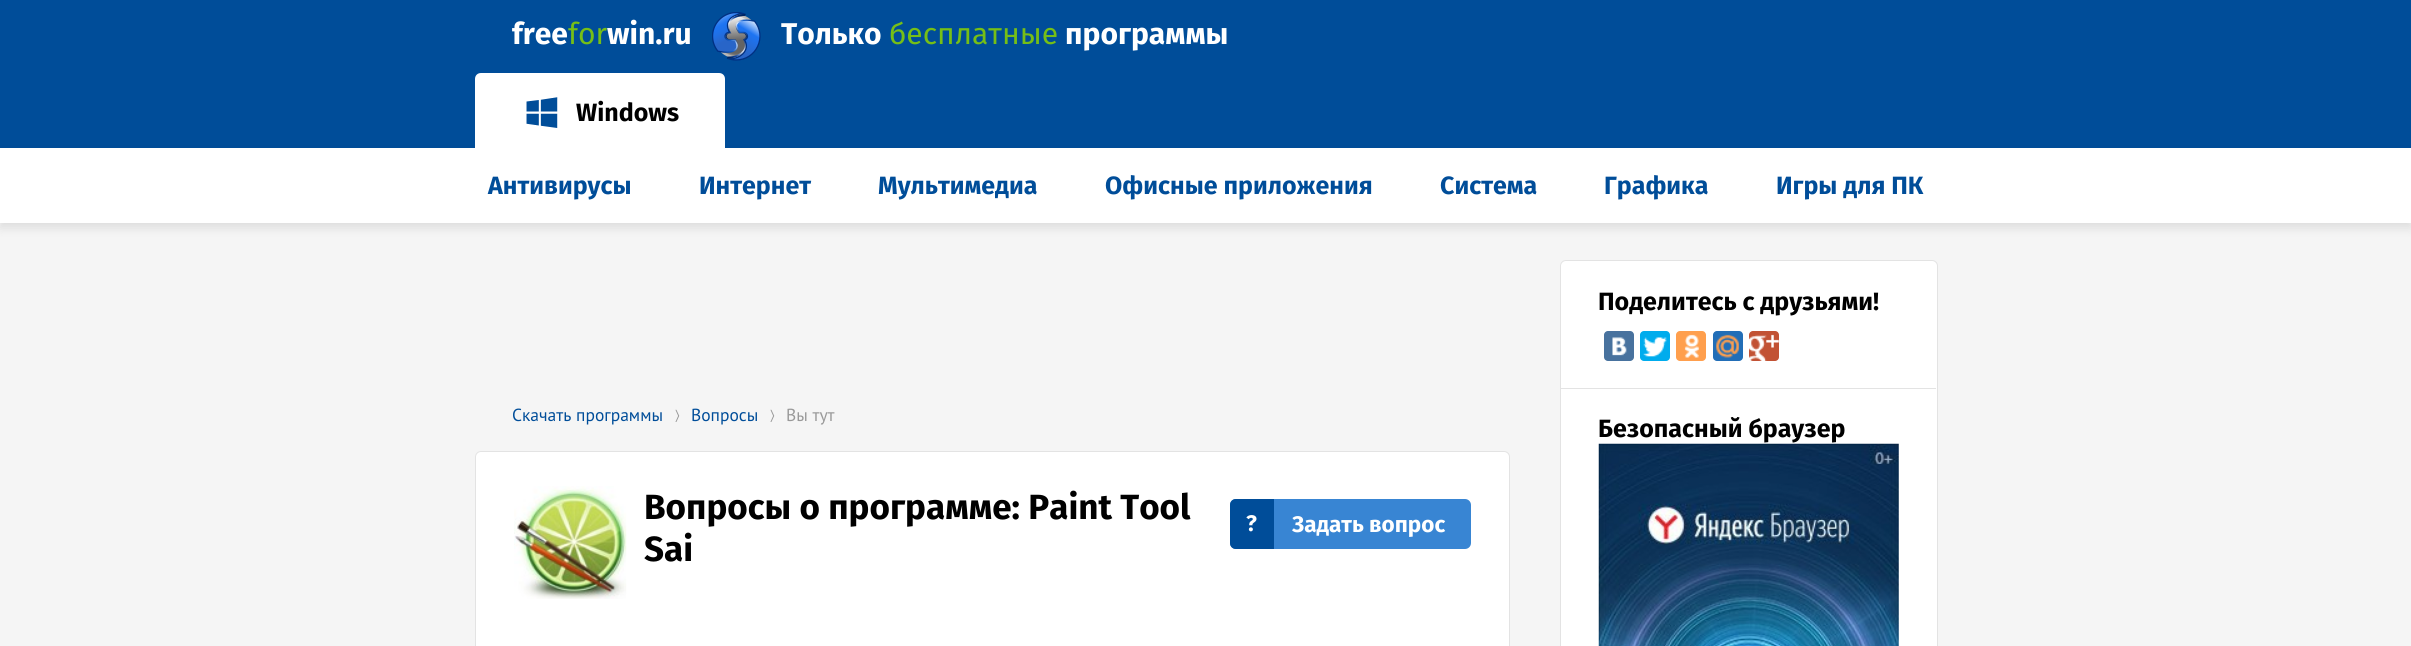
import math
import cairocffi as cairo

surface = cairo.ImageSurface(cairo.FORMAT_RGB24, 2411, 646)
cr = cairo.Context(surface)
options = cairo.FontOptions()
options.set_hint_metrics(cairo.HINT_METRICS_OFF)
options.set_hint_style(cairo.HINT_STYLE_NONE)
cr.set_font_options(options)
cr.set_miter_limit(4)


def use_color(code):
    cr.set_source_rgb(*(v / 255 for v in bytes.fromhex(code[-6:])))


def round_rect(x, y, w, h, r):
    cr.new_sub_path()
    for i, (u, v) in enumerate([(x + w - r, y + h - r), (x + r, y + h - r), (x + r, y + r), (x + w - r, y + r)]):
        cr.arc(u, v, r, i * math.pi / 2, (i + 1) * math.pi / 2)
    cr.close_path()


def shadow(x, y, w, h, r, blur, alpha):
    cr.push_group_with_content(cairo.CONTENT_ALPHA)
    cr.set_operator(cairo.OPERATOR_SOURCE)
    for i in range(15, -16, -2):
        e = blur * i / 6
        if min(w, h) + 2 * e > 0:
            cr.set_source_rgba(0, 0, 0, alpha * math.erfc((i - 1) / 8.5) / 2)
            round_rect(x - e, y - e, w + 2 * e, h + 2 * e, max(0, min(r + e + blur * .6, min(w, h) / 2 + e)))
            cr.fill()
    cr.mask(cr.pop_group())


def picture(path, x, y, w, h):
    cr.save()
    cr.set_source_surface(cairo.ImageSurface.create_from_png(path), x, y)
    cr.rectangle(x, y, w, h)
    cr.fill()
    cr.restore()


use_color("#f5f5f5")
cr.paint()
use_color("#004d99")
cr.rectangle(0, 0, 2411, 148)
cr.fill()
cr.select_font_face("Fira Sans", cairo.FONT_SLANT_NORMAL, cairo.FONT_WEIGHT_BOLD)
cr.set_font_size(30)
use_color("#ffffff")
cr.move_to(512, 44)
cr.show_text("free")
cr.select_font_face("Fira Sans")
use_color("#76bf16")
cr.move_to(568, 44)
cr.show_text("for")
cr.select_font_face("Fira Sans", cairo.FONT_SLANT_NORMAL, cairo.FONT_WEIGHT_BOLD)
use_color("#ffffff")
cr.move_to(607, 44)
cr.show_text("win.ru")
picture("img1.png", 712, 12, 49, 49)
cr.move_to(781, 44)
cr.show_text("Только")
cr.select_font_face("Fira Sans")
use_color("#76bf16")
cr.move_to(889, 44)
cr.show_text("бесплатные")
cr.select_font_face("Fira Sans", cairo.FONT_SLANT_NORMAL, cairo.FONT_WEIGHT_BOLD)
use_color("#ffffff")
cr.move_to(1065, 44)
cr.show_text("программы")
use_color("#000000")
shadow(0, 153, 2411, 75, 0, 5, 0.1)
use_color("#ffffff")
cr.new_path()
cr.move_to(481, 73)
cr.line_to(719, 73)
cr.curve_to(722.5, 73, 725, 75.5, 725, 79)
cr.line_to(725, 148)
cr.line_to(475, 148)
cr.line_to(475, 79)
cr.curve_to(475, 75.5, 477.5, 73, 481, 73)
cr.close_path()
cr.fill()
picture("img2.png", 526, 97, 32, 31)
cr.set_font_size(25)
use_color("#000000")
cr.move_to(576, 121)
cr.show_text("Windows")
use_color("#ffffff")
cr.rectangle(0, 148, 2411, 75)
cr.fill()
use_color("#004d99")
cr.move_to(488, 194)
cr.show_text("Антивирусы")
cr.move_to(699, 194)
cr.show_text("Интернет")
cr.move_to(878, 194)
cr.show_text("Мультимедиа")
cr.move_to(1105, 194)
cr.show_text("Офисные приложения")
cr.move_to(1440, 194)
cr.show_text("Система")
cr.move_to(1604, 194)
cr.show_text("Графика")
cr.move_to(1776, 194)
cr.show_text("Игры для ПК")
use_color("#ffffff")
round_rect(1560.5, 260.5, 377, 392, 5.5)
cr.fill_preserve()
use_color("#e3e3e3")
cr.set_line_width(1)
cr.stroke()
use_color("#000000")
cr.move_to(1598, 310)
cr.show_text("Поделитесь с друзьями!")
use_color("#48729e")
round_rect(1604, 331, 30, 30, 4)
cr.fill()
picture("img3.png", 1612, 337, 15, 19)
use_color("#00aced")
round_rect(1640, 331, 30, 30, 4)
cr.fill()
picture("img4.png", 1643, 337, 24, 20)
use_color("#ff9f4d")
round_rect(1676, 331, 30, 30, 4)
cr.fill()
picture("img5.png", 1684, 334, 15, 24)
use_color("#226eb7")
round_rect(1713, 331, 30, 30, 4)
cr.fill()
picture("img6.png", 1716, 334, 23, 24)
use_color("#c25234")
round_rect(1749, 331, 30, 30, 4)
cr.fill()
picture("img7.png", 1749, 334, 30, 27)
use_color("#e3e3e3")
cr.rectangle(1561, 388, 375, 1)
cr.fill()
use_color("#000000")
cr.move_to(1598, 437)
cr.show_text("Безопасный браузер")
picture("img8.png", 1598, 443, 301, 203)
cr.select_font_face("PT Sans")
cr.set_font_size(17.5)
use_color("#004d99")
cr.move_to(512, 421)
cr.show_text("Скачать программы")
cr.select_font_face("FreeSans")
cr.set_font_size(14)
use_color("#999999")
cr.move_to(675, 420)
cr.show_text("〉")
cr.select_font_face("PT Sans")
cr.set_font_size(17.5)
use_color("#004d99")
cr.move_to(691, 421)
cr.show_text("Вопросы")
cr.select_font_face("FreeSans")
cr.set_font_size(14)
use_color("#999999")
cr.move_to(770, 420)
cr.show_text("〉")
cr.select_font_face("PT Sans")
cr.set_font_size(17.5)
cr.move_to(786, 421)
cr.show_text("Вы тут")
use_color("#ffffff")
round_rect(475.5, 451.5, 1034, 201, 5.5)
cr.fill_preserve()
use_color("#e3e3e3")
cr.stroke()
picture("img9.png", 514, 486, 113, 113)
cr.select_font_face("Fira Sans", cairo.FONT_SLANT_NORMAL, cairo.FONT_WEIGHT_BOLD)
cr.set_font_size(35)
use_color("#000000")
cr.move_to(644, 519)
cr.show_text("Вопросы о программе: Paint Tool")
use_color("#3885d3")
round_rect(1230, 499, 241, 50, 6)
cr.fill()
use_color("#004d99")
cr.new_path()
cr.move_to(1236, 499)
cr.line_to(1274, 499)
cr.line_to(1274, 549)
cr.line_to(1236, 549)
cr.curve_to(1232.5, 549, 1230, 546.5, 1230, 543)
cr.line_to(1230, 505)
cr.curve_to(1230, 501.5, 1232.5, 499, 1236, 499)
cr.close_path()
cr.fill()
cr.set_font_size(22.5)
use_color("#ffffff")
cr.move_to(1246, 531)
cr.show_text("?")
cr.move_to(1292, 532)
cr.show_text("Задать вопрос")
cr.set_font_size(35)
use_color("#000000")
cr.move_to(644, 561)
cr.show_text("Sai")
surface.write_to_png("result.png")
